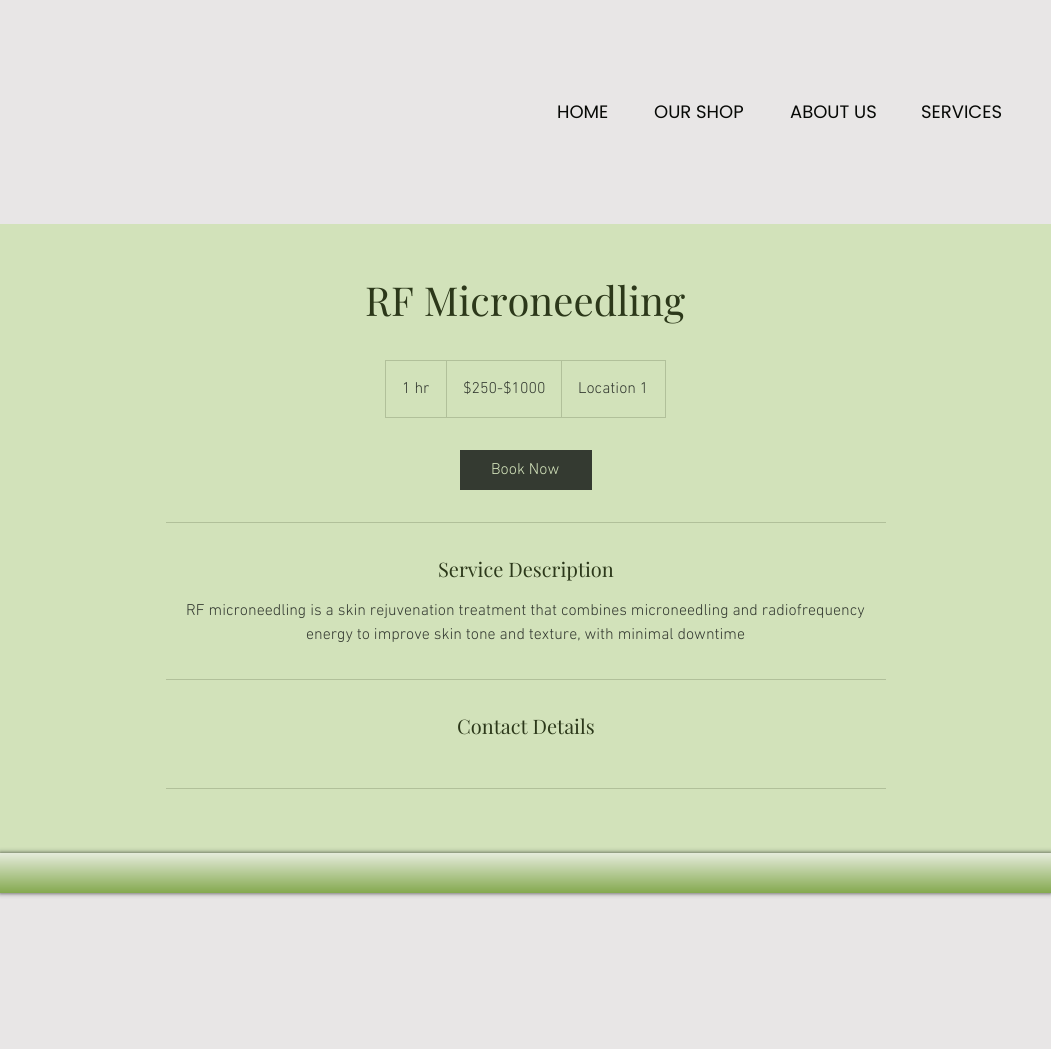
import math
import cairocffi as cairo

surface = cairo.ImageSurface(cairo.FORMAT_RGB24, 1051, 1049)
cr = cairo.Context(surface)
options = cairo.FontOptions()
options.set_hint_metrics(cairo.HINT_METRICS_OFF)
options.set_hint_style(cairo.HINT_STYLE_NONE)
cr.set_font_options(options)
cr.set_miter_limit(4)


def use_color(code):
    cr.set_source_rgb(*(v / 255 for v in bytes.fromhex(code[-6:])))


def round_rect(x, y, w, h, r):
    cr.new_sub_path()
    for i, (u, v) in enumerate([(x + w - r, y + h - r), (x + r, y + h - r), (x + r, y + r), (x + w - r, y + r)]):
        cr.arc(u, v, r, i * math.pi / 2, (i + 1) * math.pi / 2)
    cr.close_path()


def shadow(x, y, w, h, r, blur, alpha):
    cr.push_group_with_content(cairo.CONTENT_ALPHA)
    cr.set_operator(cairo.OPERATOR_SOURCE)
    for i in range(15, -16, -2):
        e = blur * i / 6
        if min(w, h) + 2 * e > 0:
            cr.set_source_rgba(0, 0, 0, alpha * math.erfc((i - 1) / 8.5) / 2)
            round_rect(x - e, y - e, w + 2 * e, h + 2 * e, max(0, min(r + e + blur * .6, min(w, h) / 2 + e)))
            cr.fill()
    cr.mask(cr.pop_group())


use_color("#e8e6e6")
cr.paint()
cr.select_font_face("Poppins")
cr.set_font_size(18)
use_color("#070906")
cr.move_to(557, 118)
cr.show_text("HOME")
cr.move_to(654, 118)
cr.show_text("OUR SHOP")
cr.move_to(790, 118)
cr.show_text("ABOUT US")
cr.move_to(921, 118)
cr.show_text("SERVICES")
use_color("#d2e2ba")
cr.rectangle(0, 224, 1051, 629)
cr.fill()
cr.select_font_face("Playfair Display")
cr.set_font_size(40)
use_color("#2c381a")
cr.move_to(365, 316)
cr.show_text("RF Microneedling")
cr.rectangle(385.5, 360.5, 280, 57)
use_color("#b1c09a")
cr.set_line_width(1)
cr.stroke()
cr.select_font_face("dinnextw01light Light")
cr.set_font_size(16)
use_color("#343a31")
cr.move_to(402, 393)
cr.show_text("1 hr")
use_color("#b1c09a")
cr.new_path()
cr.move_to(446, 417)
cr.line_to(446, 360)
cr.line_to(447, 361)
cr.line_to(447, 417)
cr.close_path()
cr.fill()
use_color("#343a31")
cr.move_to(463, 393)
cr.show_text("$250-$1000")
use_color("#b1c09a")
cr.new_path()
cr.move_to(561, 417)
cr.line_to(561, 360)
cr.line_to(562, 361)
cr.line_to(562, 417)
cr.close_path()
cr.fill()
use_color("#343a31")
cr.move_to(578, 393)
cr.show_text("Location 1")
cr.rectangle(460, 450, 132, 40)
cr.fill()
use_color("#d2e2ba")
cr.move_to(491, 474)
cr.show_text("Book Now")
use_color("#b1c09a")
cr.rectangle(166, 522, 720, 1)
cr.fill()
cr.select_font_face("Playfair Display")
cr.set_font_size(20)
use_color("#2c381a")
cr.move_to(438, 577)
cr.show_text("Service Description")
cr.select_font_face("dinnextw01light Light")
cr.set_font_size(16)
use_color("#343a31")
cr.move_to(186, 615)
cr.show_text("RF microneedling is a skin rejuvenation treatment that combines microneedling and radiofrequency")
cr.move_to(306, 639)
cr.show_text("energy to improve skin tone and texture, with minimal downtime")
use_color("#b1c09a")
cr.rectangle(166, 679, 720, 1)
cr.fill()
cr.select_font_face("Playfair Display")
cr.set_font_size(20)
use_color("#2c381a")
cr.move_to(457, 734)
cr.show_text("Contact Details")
use_color("#b1c09a")
cr.rectangle(166, 788, 720, 1)
cr.fill()
use_color("#000000")
shadow(0, 853, 1051, 40, 0, 2.5, 0.7)
gradient = cairo.LinearGradient(526, 893, 526, 853)
gradient.add_color_stop_rgba(0, 0.518, 0.663, 0.31, 1)
gradient.add_color_stop_rgba(1, 0.898, 0.922, 0.859, 1)
cr.set_source(gradient)
cr.rectangle(0, 853, 1051, 40)
cr.fill()
surface.write_to_png("result.png")
